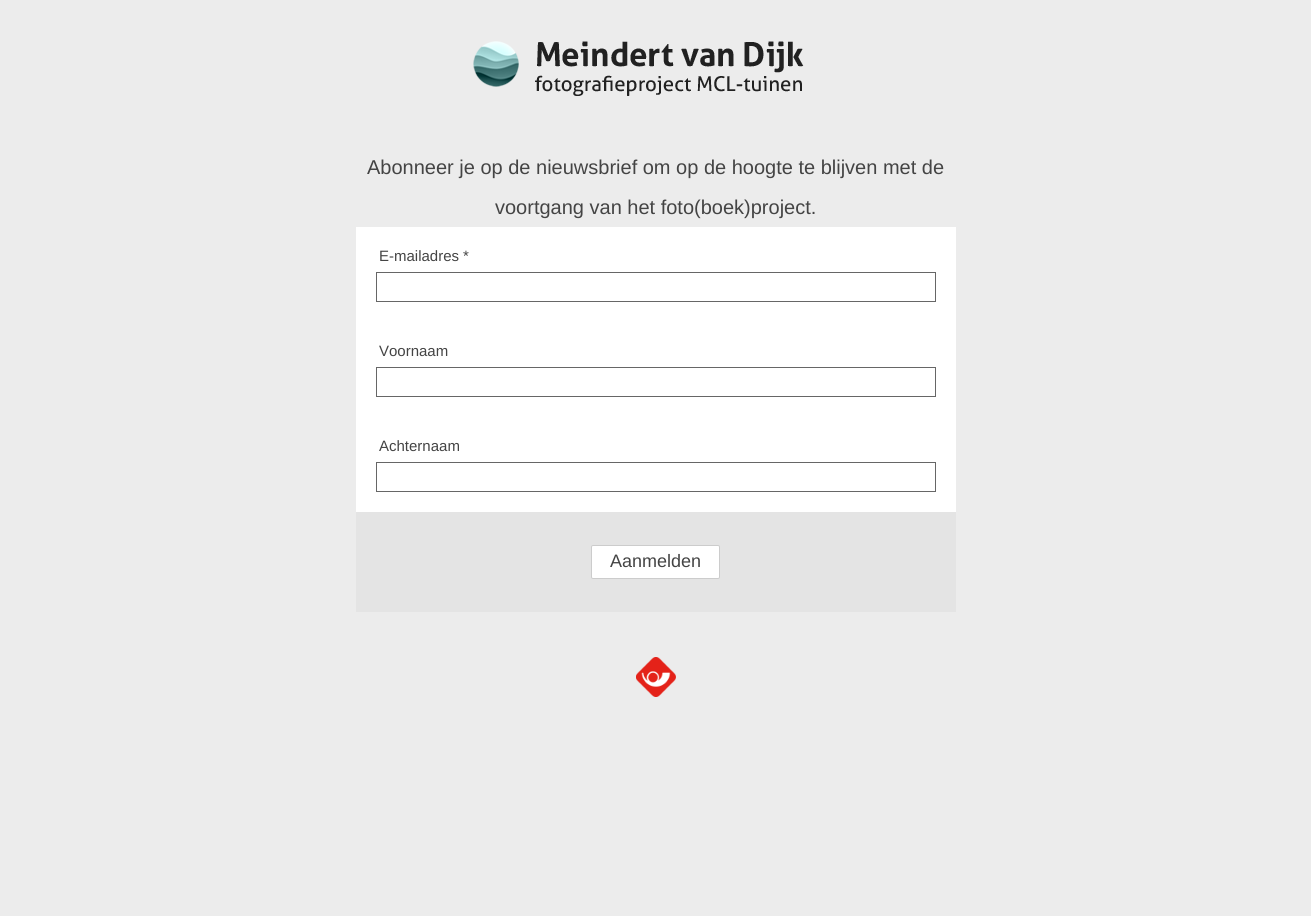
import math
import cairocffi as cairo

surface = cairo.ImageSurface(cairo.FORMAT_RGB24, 1311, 916)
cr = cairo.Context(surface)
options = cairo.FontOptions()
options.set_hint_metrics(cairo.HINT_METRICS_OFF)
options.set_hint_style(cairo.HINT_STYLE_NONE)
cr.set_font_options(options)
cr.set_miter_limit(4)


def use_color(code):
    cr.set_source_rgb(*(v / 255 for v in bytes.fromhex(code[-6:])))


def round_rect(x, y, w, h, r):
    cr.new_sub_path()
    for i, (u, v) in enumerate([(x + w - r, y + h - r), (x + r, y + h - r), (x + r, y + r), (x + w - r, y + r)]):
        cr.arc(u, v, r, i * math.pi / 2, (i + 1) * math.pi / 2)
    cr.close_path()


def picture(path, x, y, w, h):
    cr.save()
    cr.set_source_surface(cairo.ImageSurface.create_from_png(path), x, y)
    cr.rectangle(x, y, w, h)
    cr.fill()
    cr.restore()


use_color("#ececec")
cr.paint()
picture("img1.png", 473, 41, 331, 55)
cr.select_font_face("Liberation Sans")
cr.set_font_size(20)
use_color("#444444")
cr.move_to(367, 174)
cr.show_text("Abonneer je op de nieuwsbrief om op de hoogte te blijven met de")
cr.move_to(495, 214)
cr.show_text("voortgang van het foto(boek)project.")
use_color("#ffffff")
cr.rectangle(356, 227, 600, 285)
cr.fill()
cr.set_font_size(15)
use_color("#444444")
cr.move_to(379, 261)
cr.show_text("E-mailadres")
cr.move_to(463, 261)
cr.show_text("*")
cr.rectangle(376.5, 272.5, 559, 29)
use_color("#666666")
cr.set_line_width(1)
cr.stroke()
use_color("#444444")
cr.move_to(379, 356)
cr.show_text("Voornaam")
cr.rectangle(376.5, 367.5, 559, 29)
use_color("#666666")
cr.stroke()
use_color("#444444")
cr.move_to(379, 451)
cr.show_text("Achternaam")
cr.rectangle(376.5, 462.5, 559, 29)
use_color("#666666")
cr.stroke()
use_color("#e4e4e4")
cr.rectangle(356, 512, 600, 100)
cr.fill()
use_color("#ffffff")
round_rect(591.5, 545.5, 128, 33, 1.5)
cr.fill_preserve()
use_color("#cccccc")
cr.stroke()
cr.set_font_size(18)
use_color("#444444")
cr.move_to(610, 567)
cr.show_text("Aanmelden")
picture("img2.png", 636, 657, 40, 40)
surface.write_to_png("result.png")
